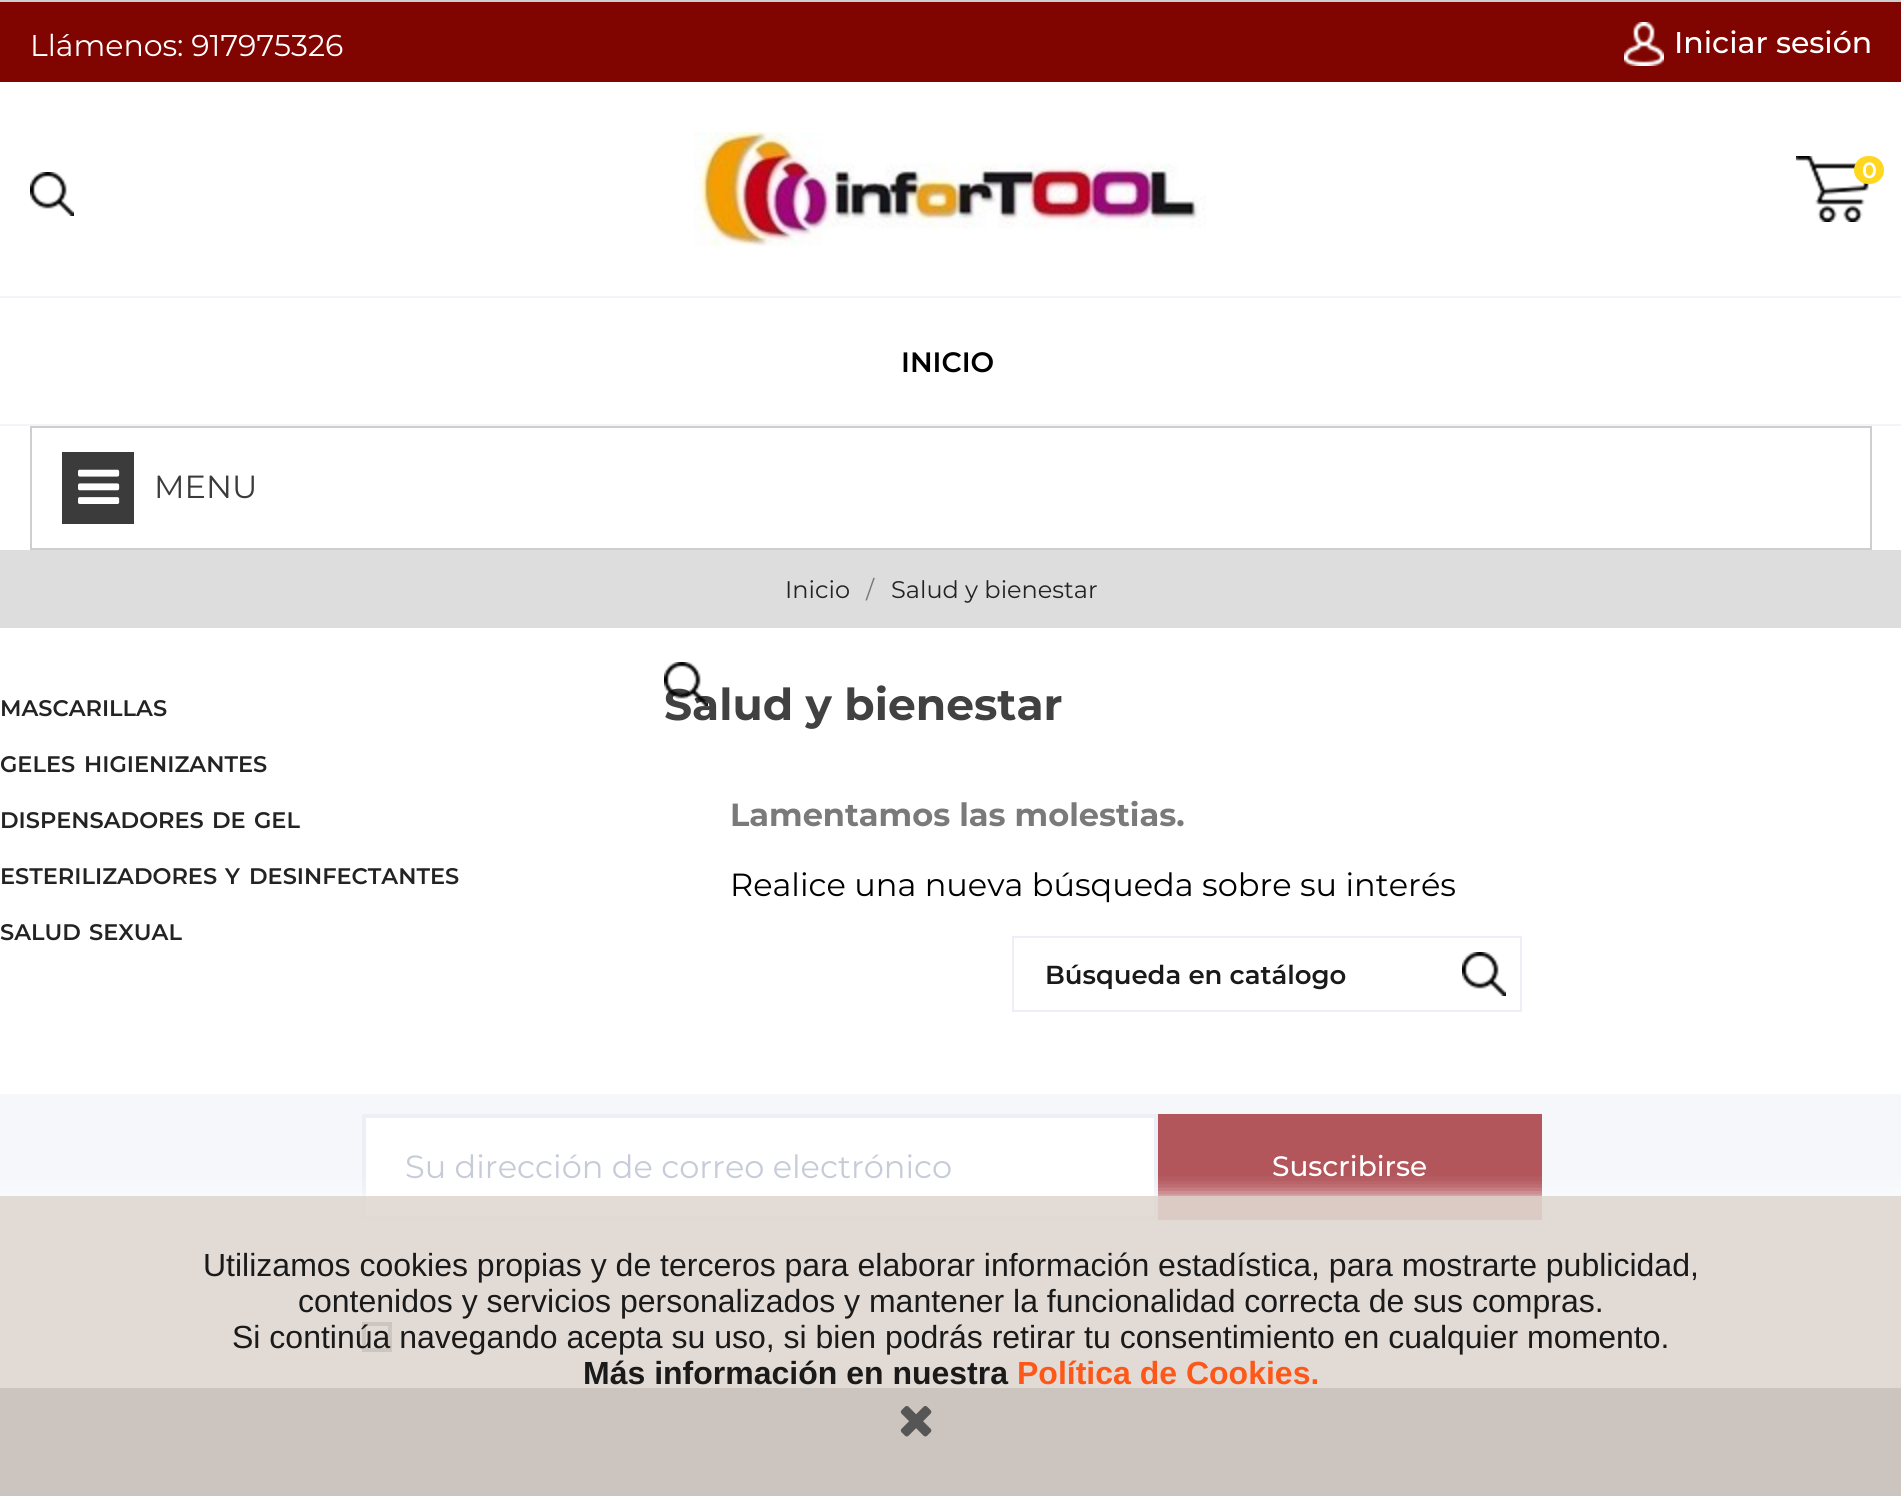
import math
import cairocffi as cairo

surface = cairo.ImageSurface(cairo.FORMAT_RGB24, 1901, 1496)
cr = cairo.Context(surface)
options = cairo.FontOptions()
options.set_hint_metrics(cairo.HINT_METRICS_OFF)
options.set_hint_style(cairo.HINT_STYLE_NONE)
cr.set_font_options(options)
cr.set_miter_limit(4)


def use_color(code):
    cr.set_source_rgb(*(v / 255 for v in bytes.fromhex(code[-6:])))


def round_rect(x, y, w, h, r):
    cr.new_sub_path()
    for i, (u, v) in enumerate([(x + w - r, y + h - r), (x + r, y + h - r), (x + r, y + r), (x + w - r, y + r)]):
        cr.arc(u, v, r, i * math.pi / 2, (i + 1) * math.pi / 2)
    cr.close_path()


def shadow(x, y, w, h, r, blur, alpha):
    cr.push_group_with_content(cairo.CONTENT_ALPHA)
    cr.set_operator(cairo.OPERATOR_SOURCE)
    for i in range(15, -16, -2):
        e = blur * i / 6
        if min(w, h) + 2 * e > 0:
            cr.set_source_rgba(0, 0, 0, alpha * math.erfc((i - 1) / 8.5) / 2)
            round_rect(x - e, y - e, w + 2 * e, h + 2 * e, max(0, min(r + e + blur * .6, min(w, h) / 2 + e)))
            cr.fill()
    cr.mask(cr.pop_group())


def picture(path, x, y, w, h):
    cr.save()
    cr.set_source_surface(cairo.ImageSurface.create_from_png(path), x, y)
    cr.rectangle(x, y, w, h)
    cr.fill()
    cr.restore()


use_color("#ffffff")
cr.paint()
use_color("#cecece")
cr.rectangle(0, 0, 1901, 2)
cr.fill()
use_color("#800400")
cr.rectangle(0, 2, 1901, 80)
cr.fill()
cr.select_font_face("Montserrat")
cr.set_font_size(30)
use_color("#ffffff")
cr.move_to(30, 56)
cr.show_text("Llámenos: 917975326")
picture("img1.png", 1624, 22, 40, 44)
cr.select_font_face("Montserrat Medium")
cr.move_to(1674, 53)
cr.show_text("Iniciar sesión")
picture("img2.png", 30, 172, 44, 44)
picture("img3.png", 694, 132, 512, 114)
picture("img4.png", 1796, 156, 73, 66)
use_color("#ffd620")
round_rect(1857, 159, 24, 22, 11)
cr.fill_preserve()
cr.set_line_width(6)
cr.stroke()
cr.select_font_face("Montserrat SemiBold")
cr.set_font_size(22)
use_color("#ffffff")
cr.move_to(1862, 178)
cr.show_text("0")
use_color("#f2f4f9")
cr.rectangle(0, 296, 1901, 2)
cr.fill()
cr.rectangle(0, 424, 1901, 2)
cr.fill()
cr.set_font_size(28)
use_color("#000000")
cr.move_to(901, 372)
cr.show_text("INICIO")
cr.rectangle(31, 427, 1840, 122)
use_color("#cecece")
cr.set_line_width(2)
cr.stroke()
use_color("#3b3b3b")
cr.rectangle(62, 452, 72, 72)
cr.fill()
picture("img5.png", 78, 469, 42, 35)
cr.select_font_face("Montserrat")
cr.set_font_size(32)
cr.move_to(154, 498)
cr.show_text("MENU")
use_color("#dddddd")
cr.rectangle(0, 550, 1901, 78)
cr.fill()
cr.set_font_size(24)
use_color("#232323")
cr.move_to(785, 598)
cr.show_text("Inicio")
use_color("#7a7a7a")
cr.move_to(866, 598)
cr.show_text("/")
use_color("#232323")
cr.move_to(891, 598)
cr.show_text("Salud y bienestar")
cr.select_font_face("Montserrat SemiBold")
cr.set_font_size(22.5)
cr.move_to(0, 716)
cr.show_text("MASCARILLAS")
cr.move_to(0, 772)
cr.show_text("GELES")
cr.move_to(84, 772)
cr.show_text("HIGIENIZANTES")
cr.move_to(0, 828)
cr.show_text("DISPENSADORES")
cr.move_to(212, 828)
cr.show_text("DE")
cr.move_to(254, 828)
cr.show_text("GEL")
cr.move_to(0, 884)
cr.show_text("ESTERILIZADORES")
cr.move_to(225, 884)
cr.show_text("Y")
cr.move_to(249, 884)
cr.show_text("DESINFECTANTES")
cr.move_to(0, 940)
cr.show_text("SALUD")
cr.move_to(89, 940)
cr.show_text("SEXUAL")
cr.select_font_face("Montserrat", cairo.FONT_SLANT_NORMAL, cairo.FONT_WEIGHT_BOLD)
cr.set_font_size(44)
use_color("#414141")
cr.move_to(664, 720)
cr.show_text("Salud y bienestar")
cr.set_font_size(32)
use_color("#7a7a7a")
cr.move_to(730, 826)
cr.show_text("Lamentamos las molestias.")
cr.select_font_face("Montserrat")
use_color("#000000")
cr.move_to(730, 896)
cr.show_text("Realice una nueva búsqueda sobre su interés")
picture("img6.png", 664, 662, 44, 44)
cr.rectangle(1013, 937, 508, 74)
use_color("#eceff7")
cr.stroke()
cr.select_font_face("Montserrat SemiBold")
cr.set_font_size(26)
use_color("#1a1a1a")
cr.move_to(1045, 984)
cr.show_text("Búsqueda en catálogo")
picture("img2.png", 1462, 952, 44, 44)
use_color("#f5f7fb")
cr.rectangle(0, 1094, 1901, 294)
cr.fill()
use_color("#ffffff")
cr.rectangle(364, 1116, 792, 102)
cr.fill_preserve()
use_color("#eceff7")
cr.set_line_width(4)
cr.stroke()
cr.select_font_face("Montserrat")
cr.set_font_size(32)
use_color("#c6cbd8")
cr.move_to(405, 1178)
cr.show_text("Su dirección de correo electrónico")
use_color("#b3565c")
cr.rectangle(1158, 1114, 384, 106)
cr.fill()
cr.select_font_face("Montserrat Medium")
cr.set_font_size(28)
use_color("#ffffff")
cr.move_to(1272, 1176)
cr.show_text("Suscribirse")
cr.rectangle(364, 1324, 26, 26)
use_color("#232323")
cr.stroke()
use_color("#111111")
cr.rectangle(0, 1388, 1901, 108)
cr.fill()
cr.save()
cr.rectangle(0, 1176, 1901, 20)
cr.clip()
use_color("#ffffff")
shadow(0, 1196, 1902, 300, 0, 10, 0.9)
cr.restore()
cr.set_source_rgba(0.878, 0.843, 0.82, 0.9)
cr.rectangle(0, 1196, 1901, 300)
cr.fill()
cr.select_font_face("Liberation Sans")
cr.set_font_size(32)
use_color("#1a1a1a")
cr.move_to(203, 1276)
cr.show_text("Utilizamos cookies propias y de terceros para elaborar información estadística, para mostrarte publicidad,")
cr.move_to(298, 1312)
cr.show_text("contenidos y servicios personalizados y mantener la funcionalidad correcta de sus compras.")
cr.move_to(232, 1348)
cr.show_text("Si continúa navegando acepta su uso, si bien podrás retirar tu consentimiento en cualquier momento.")
cr.select_font_face("Liberation Sans", cairo.FONT_SLANT_NORMAL, cairo.FONT_WEIGHT_BOLD)
cr.move_to(583, 1384)
cr.show_text("Más información en nuestra")
use_color("#fe5819")
cr.move_to(1017, 1384)
cr.show_text("Política de Cookies.")
picture("img7.png", 900, 1406, 32, 31)
surface.write_to_png("result.png")
